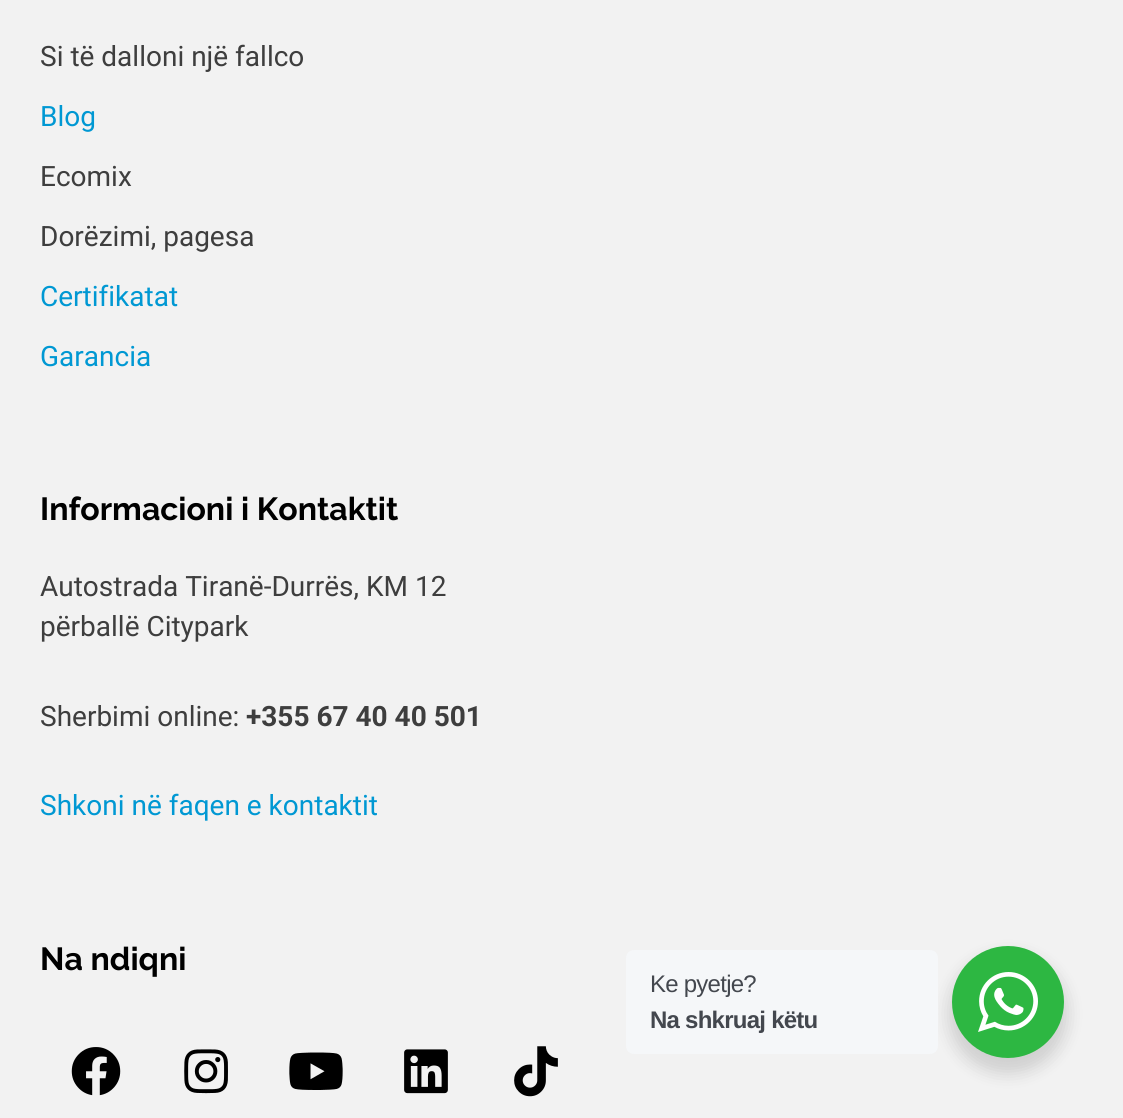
import math
import cairocffi as cairo

surface = cairo.ImageSurface(cairo.FORMAT_RGB24, 1123, 1118)
cr = cairo.Context(surface)
options = cairo.FontOptions()
options.set_hint_metrics(cairo.HINT_METRICS_OFF)
options.set_hint_style(cairo.HINT_STYLE_NONE)
cr.set_font_options(options)
cr.set_miter_limit(4)


def use_color(code):
    cr.set_source_rgb(*(v / 255 for v in bytes.fromhex(code[-6:])))


def spaced_text(x, y, s, letter, word):
    cr.move_to(x, y)
    for ch in s:
        cr.show_text(ch)
        cr.rel_move_to(letter + word * (ch == ' '), 0)


def round_rect(x, y, w, h, r):
    cr.new_sub_path()
    for i, (u, v) in enumerate([(x + w - r, y + h - r), (x + r, y + h - r), (x + r, y + r), (x + w - r, y + r)]):
        cr.arc(u, v, r, i * math.pi / 2, (i + 1) * math.pi / 2)
    cr.close_path()


def shadow(x, y, w, h, r, blur, alpha):
    cr.push_group_with_content(cairo.CONTENT_ALPHA)
    cr.set_operator(cairo.OPERATOR_SOURCE)
    for i in range(15, -16, -2):
        e = blur * i / 6
        if min(w, h) + 2 * e > 0:
            cr.set_source_rgba(0, 0, 0, alpha * math.erfc((i - 1) / 8.5) / 2)
            round_rect(x - e, y - e, w + 2 * e, h + 2 * e, max(0, min(r + e + blur * .6, min(w, h) / 2 + e)))
            cr.fill()
    cr.mask(cr.pop_group())


def picture(path, x, y, w, h):
    cr.save()
    cr.set_source_surface(cairo.ImageSurface.create_from_png(path), x, y)
    cr.rectangle(x, y, w, h)
    cr.fill()
    cr.restore()


use_color("#f2f2f2")
cr.paint()
cr.select_font_face("Roboto")
cr.set_font_size(28)
use_color("#3e3e3e")
cr.move_to(40, 66)
cr.show_text("Si të dalloni një fallco")
use_color("#0098d3")
cr.move_to(40, 126)
cr.show_text("Blog")
use_color("#3e3e3e")
cr.move_to(40, 186)
cr.show_text("Ecomix")
cr.move_to(40, 246)
cr.show_text("Dorëzimi, pagesa")
use_color("#0098d3")
cr.move_to(40, 306)
cr.show_text("Certifikatat")
cr.move_to(40, 366)
cr.show_text("Garancia")
cr.select_font_face("Raleway", cairo.FONT_SLANT_NORMAL, cairo.FONT_WEIGHT_BOLD)
cr.set_font_size(32)
use_color("#000000")
cr.move_to(40, 520)
cr.show_text("Informacioni i Kontaktit")
cr.select_font_face("Roboto")
cr.set_font_size(28)
use_color("#3e3e3e")
cr.move_to(40, 596)
cr.show_text("Autostrada Tiranë-Durrës, KM 12")
cr.move_to(40, 636)
cr.show_text("përballë Citypark")
cr.move_to(40, 726)
cr.show_text("Sherbimi online:")
cr.select_font_face("Roboto", cairo.FONT_SLANT_NORMAL, cairo.FONT_WEIGHT_BOLD)
cr.move_to(246, 726)
cr.show_text("+355 67 40 40 501")
cr.select_font_face("Roboto")
use_color("#0098d3")
cr.move_to(40, 815)
cr.show_text("Shkoni në faqen e kontaktit")
cr.select_font_face("Raleway", cairo.FONT_SLANT_NORMAL, cairo.FONT_WEIGHT_BOLD)
cr.set_font_size(32)
use_color("#000000")
cr.move_to(40, 970)
cr.show_text("Na ndiqni")
picture("img1.png", 71, 1047, 50, 49)
picture("img2.png", 184, 1049, 44, 45)
picture("img3.png", 289, 1052, 54, 38)
picture("img4.png", 404, 1049, 44, 45)
picture("img5.png", 514, 1046, 44, 51)
use_color("#000000")
shadow(948, 954, 120, 120, 60, 8, 0.14)
use_color("#f5f7f9")
round_rect(626, 950, 312, 104, 8)
cr.fill()
cr.select_font_face("Liberation Sans")
cr.set_font_size(24)
use_color("#43474e")
spaced_text(650, 992, "Ke pyetje?", -0.75, 0)
cr.select_font_face("Liberation Sans", cairo.FONT_SLANT_NORMAL, cairo.FONT_WEIGHT_BOLD)
spaced_text(650, 1028, "Na shkruaj këtu", -0.75, 0)
use_color("#2db742")
cr.new_path()
cr.arc(1008, 1002, 56, 0, 2 * math.pi)
cr.fill()
picture("img6.png", 978, 972, 60, 60)
surface.write_to_png("result.png")
